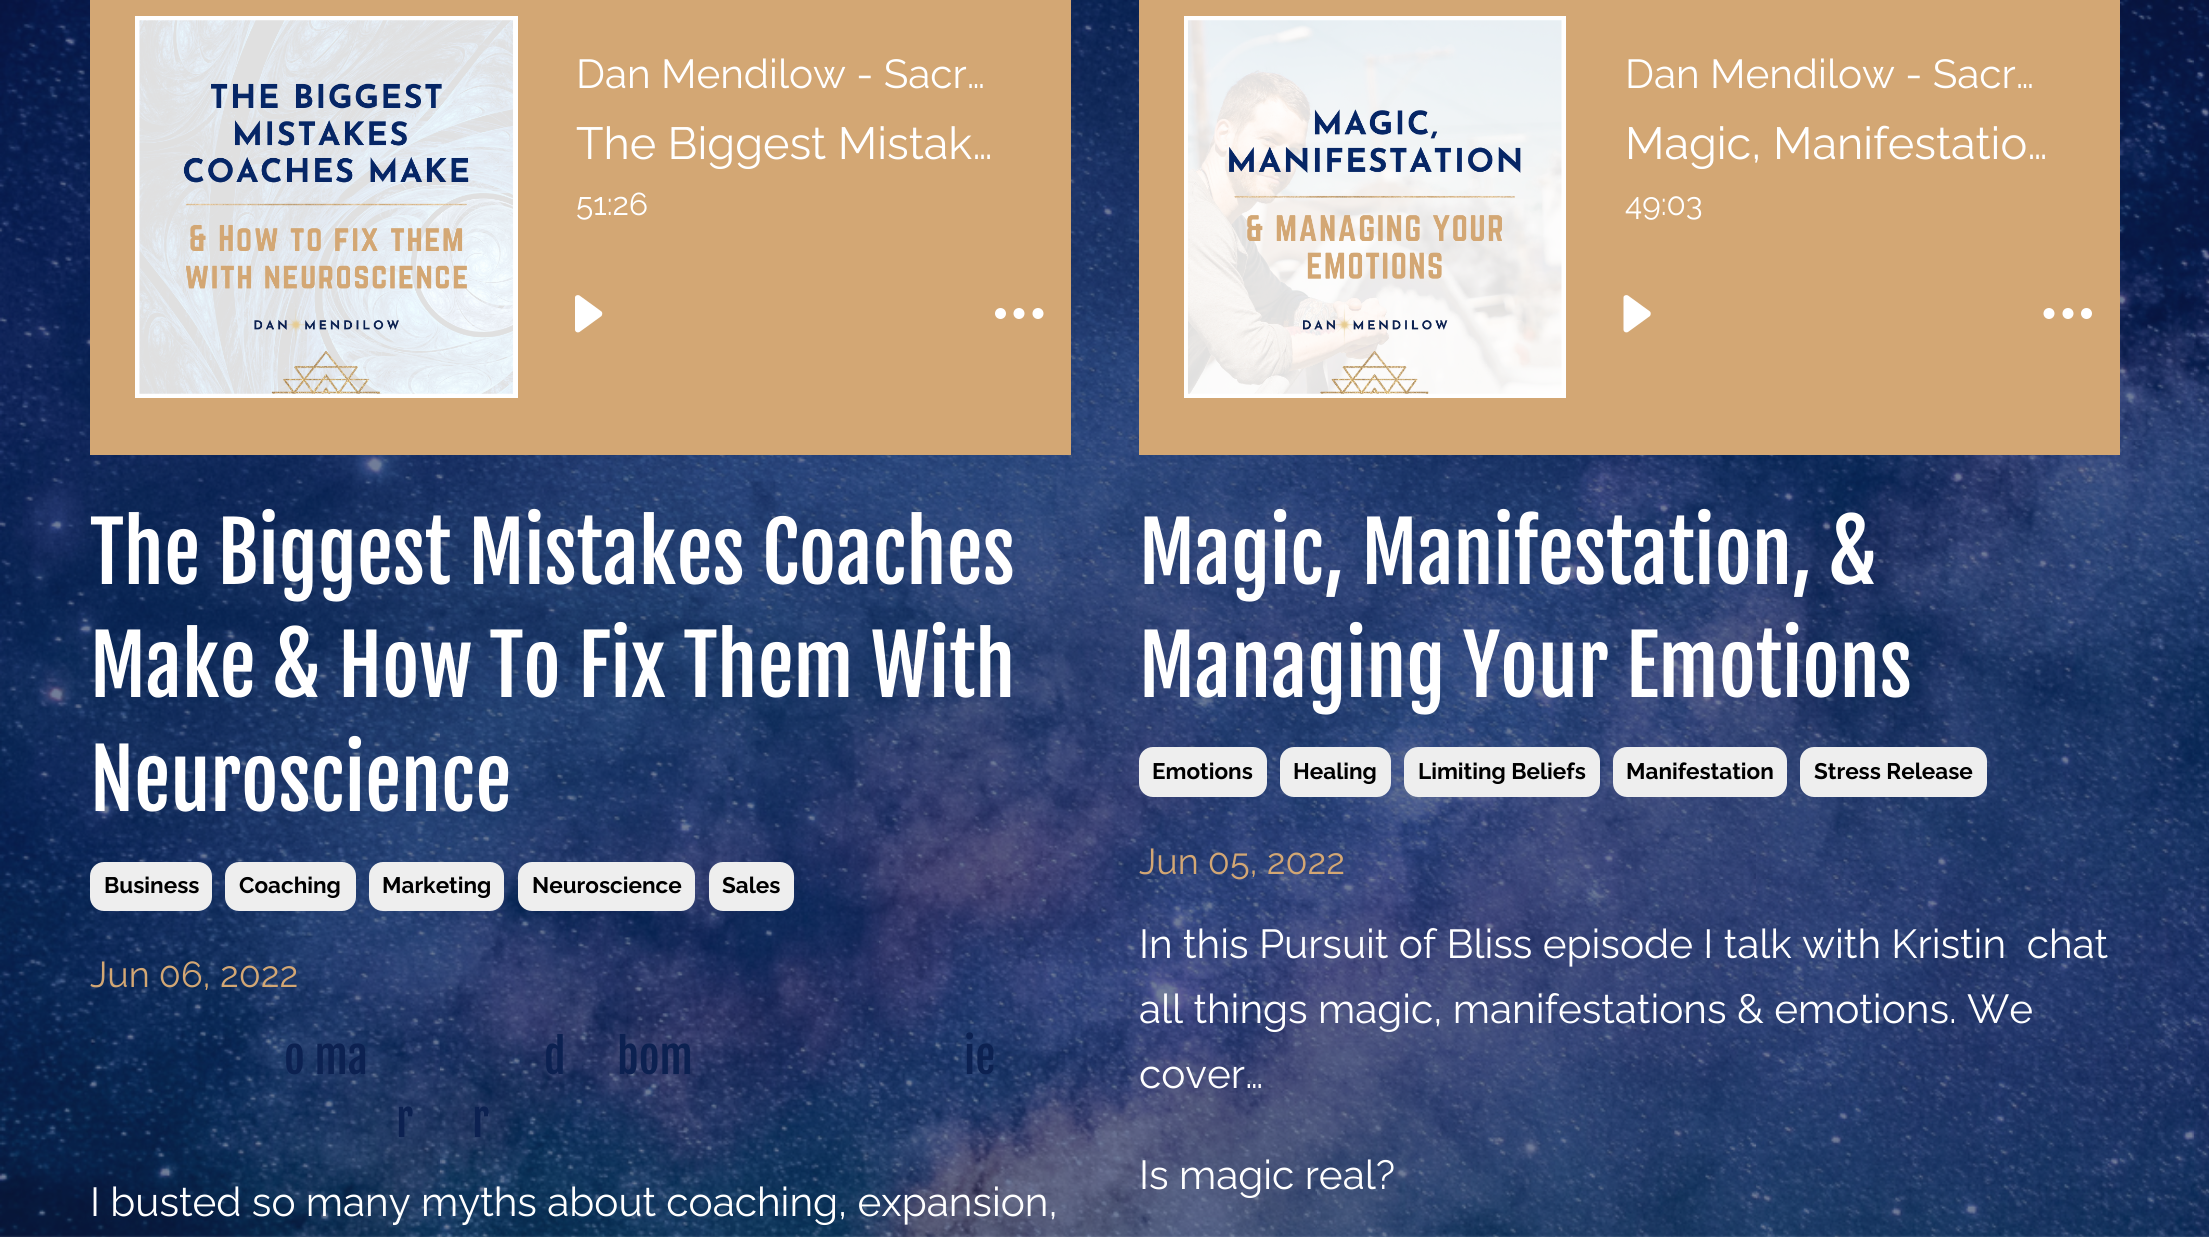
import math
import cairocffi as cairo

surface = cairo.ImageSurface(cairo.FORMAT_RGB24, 2209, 1237)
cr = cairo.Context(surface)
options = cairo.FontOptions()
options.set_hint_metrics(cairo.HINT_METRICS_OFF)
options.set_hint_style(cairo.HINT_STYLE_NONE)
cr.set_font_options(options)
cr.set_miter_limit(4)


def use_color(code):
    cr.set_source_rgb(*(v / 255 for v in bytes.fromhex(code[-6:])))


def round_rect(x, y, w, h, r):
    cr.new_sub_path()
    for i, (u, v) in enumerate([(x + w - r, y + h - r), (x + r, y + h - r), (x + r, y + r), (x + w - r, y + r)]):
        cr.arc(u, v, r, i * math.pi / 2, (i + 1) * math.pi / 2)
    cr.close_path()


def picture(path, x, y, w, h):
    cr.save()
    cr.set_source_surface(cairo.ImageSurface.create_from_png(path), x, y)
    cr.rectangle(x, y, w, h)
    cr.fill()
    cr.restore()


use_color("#ffffff")
cr.paint()
picture("img1.png", 0, 0, 2209, 1237)
use_color("#d3a774")
cr.rectangle(90, 0, 981, 455)
cr.fill()
cr.rectangle(137.5, 18.5, 378, 377)
use_color("#ffffff")
cr.set_line_width(5)
cr.stroke()
picture("img2.png", 139, 20, 374, 374)
cr.select_font_face("Raleway")
cr.set_font_size(40.5)
cr.move_to(576, 88)
cr.show_text("Dan Mendilow - Sacr…")
cr.set_font_size(45)
cr.move_to(576, 159)
cr.show_text("The Biggest Mistak…")
cr.set_font_size(31.5)
cr.move_to(576, 215)
cr.show_text("51:26")
cr.new_path()
cr.move_to(601.5, 311.5)
cr.curve_to(602.5, 312.5, 602.5, 314.5, 601.5, 316)
cr.line_to(579.5, 332)
cr.curve_to(577.5, 333, 575, 332, 575, 329.5)
cr.line_to(575, 297.5)
cr.curve_to(575, 295.5, 577.5, 294.5, 579.5, 295.5)
cr.close_path()
cr.fill()
cr.arc(1000.5, 313.5, 5.5, 0, 2 * math.pi)
cr.fill()
cr.arc(1019, 313.5, 5.5, 0, 2 * math.pi)
cr.fill()
cr.arc(1038, 313.5, 5.5, 0, 2 * math.pi)
cr.fill()
cr.select_font_face("Fjalla One")
cr.set_font_size(81)
cr.move_to(90, 584)
cr.show_text("The Biggest Mistakes Coaches")
cr.move_to(90, 697)
cr.show_text("Make & How To Fix Them With")
cr.move_to(90, 811)
cr.show_text("Neuroscience")
use_color("#eeeeee")
round_rect(90, 862, 122, 49, 14)
cr.fill()
cr.select_font_face("Raleway", cairo.FONT_SLANT_NORMAL, cairo.FONT_WEIGHT_BOLD)
cr.set_font_size(22.5)
use_color("#000000")
cr.move_to(104, 893)
cr.show_text("Business")
use_color("#eeeeee")
round_rect(225, 862, 131, 49, 14)
cr.fill()
use_color("#000000")
cr.move_to(239, 893)
cr.show_text("Coaching")
use_color("#eeeeee")
round_rect(369, 862, 135, 49, 14)
cr.fill()
use_color("#000000")
cr.move_to(382, 893)
cr.show_text("Marketing")
use_color("#eeeeee")
round_rect(518, 862, 177, 49, 14)
cr.fill()
use_color("#000000")
cr.move_to(532, 893)
cr.show_text("Neuroscience")
use_color("#eeeeee")
round_rect(709, 862, 85, 49, 14)
cr.fill()
use_color("#000000")
cr.move_to(722, 893)
cr.show_text("Sales")
cr.select_font_face("Raleway")
cr.set_font_size(36)
use_color("#d3a774")
cr.move_to(90, 987)
cr.show_text("Jun 06, 2022")
cr.select_font_face("Fjalla One")
cr.set_font_size(45)
use_color("#0c2151")
cr.move_to(284, 1074)
cr.show_text("o ma")
cr.move_to(544, 1074)
cr.show_text("d")
cr.move_to(617, 1074)
cr.show_text("bom")
cr.move_to(964, 1074)
cr.show_text("ie")
cr.move_to(396, 1137)
cr.show_text("r")
cr.move_to(472, 1137)
cr.show_text("r")
cr.select_font_face("Raleway")
cr.set_font_size(40.5)
use_color("#ffffff")
cr.move_to(90, 1216)
cr.show_text("I busted so many myths about coaching, expansion,")
use_color("#d3a774")
cr.rectangle(1139, 0, 981, 455)
cr.fill()
cr.rectangle(1186.5, 18.5, 377, 377)
use_color("#ffffff")
cr.stroke()
picture("img3.png", 1188, 20, 374, 374)
cr.move_to(1625, 88)
cr.show_text("Dan Mendilow - Sacr…")
cr.set_font_size(45)
cr.move_to(1625, 159)
cr.show_text("Magic, Manifestatio…")
cr.set_font_size(31.5)
cr.move_to(1625, 215)
cr.show_text("49:03")
cr.new_path()
cr.move_to(1650, 311.5)
cr.curve_to(1651, 312.5, 1651, 314.5, 1650, 316)
cr.line_to(1628, 332)
cr.curve_to(1626, 333, 1623.5, 332, 1623.5, 329.5)
cr.line_to(1623.5, 297.5)
cr.curve_to(1623.5, 295.5, 1626, 294.5, 1628, 295.5)
cr.close_path()
cr.fill()
cr.arc(2049, 313.5, 5.5, 0, 2 * math.pi)
cr.fill()
cr.arc(2068, 313.5, 5.5, 0, 2 * math.pi)
cr.fill()
cr.arc(2086.5, 313.5, 5.5, 0, 2 * math.pi)
cr.fill()
cr.select_font_face("Fjalla One")
cr.set_font_size(81)
cr.move_to(1139, 584)
cr.show_text("Magic, Manifestation, &")
cr.move_to(1139, 697)
cr.show_text("Managing Your Emotions")
use_color("#eeeeee")
round_rect(1139, 747, 128, 50, 14)
cr.fill()
cr.select_font_face("Raleway", cairo.FONT_SLANT_NORMAL, cairo.FONT_WEIGHT_BOLD)
cr.set_font_size(22.5)
use_color("#000000")
cr.move_to(1152, 779)
cr.show_text("Emotions")
use_color("#eeeeee")
round_rect(1280, 747, 111, 50, 14)
cr.fill()
use_color("#000000")
cr.move_to(1293, 779)
cr.show_text("Healing")
use_color("#eeeeee")
round_rect(1404, 747, 196, 50, 14)
cr.fill()
use_color("#000000")
cr.move_to(1418, 779)
cr.show_text("Limiting Beliefs")
use_color("#eeeeee")
round_rect(1613, 747, 174, 50, 14)
cr.fill()
use_color("#000000")
cr.move_to(1626, 779)
cr.show_text("Manifestation")
use_color("#eeeeee")
round_rect(1800, 747, 187, 50, 14)
cr.fill()
use_color("#000000")
cr.move_to(1814, 779)
cr.show_text("Stress Release")
cr.select_font_face("Raleway")
cr.set_font_size(36)
use_color("#d3a774")
cr.move_to(1139, 874)
cr.show_text("Jun 05, 2022")
cr.set_font_size(40.5)
use_color("#ffffff")
cr.move_to(1139, 958)
cr.show_text("In this Pursuit of Bliss episode I talk with Kristin  chat")
cr.move_to(1139, 1023)
cr.show_text("all things magic, manifestations & emotions. We")
cr.move_to(1139, 1088)
cr.show_text("cover…")
cr.move_to(1139, 1189)
cr.show_text("Is magic real?")
surface.write_to_png("result.png")
